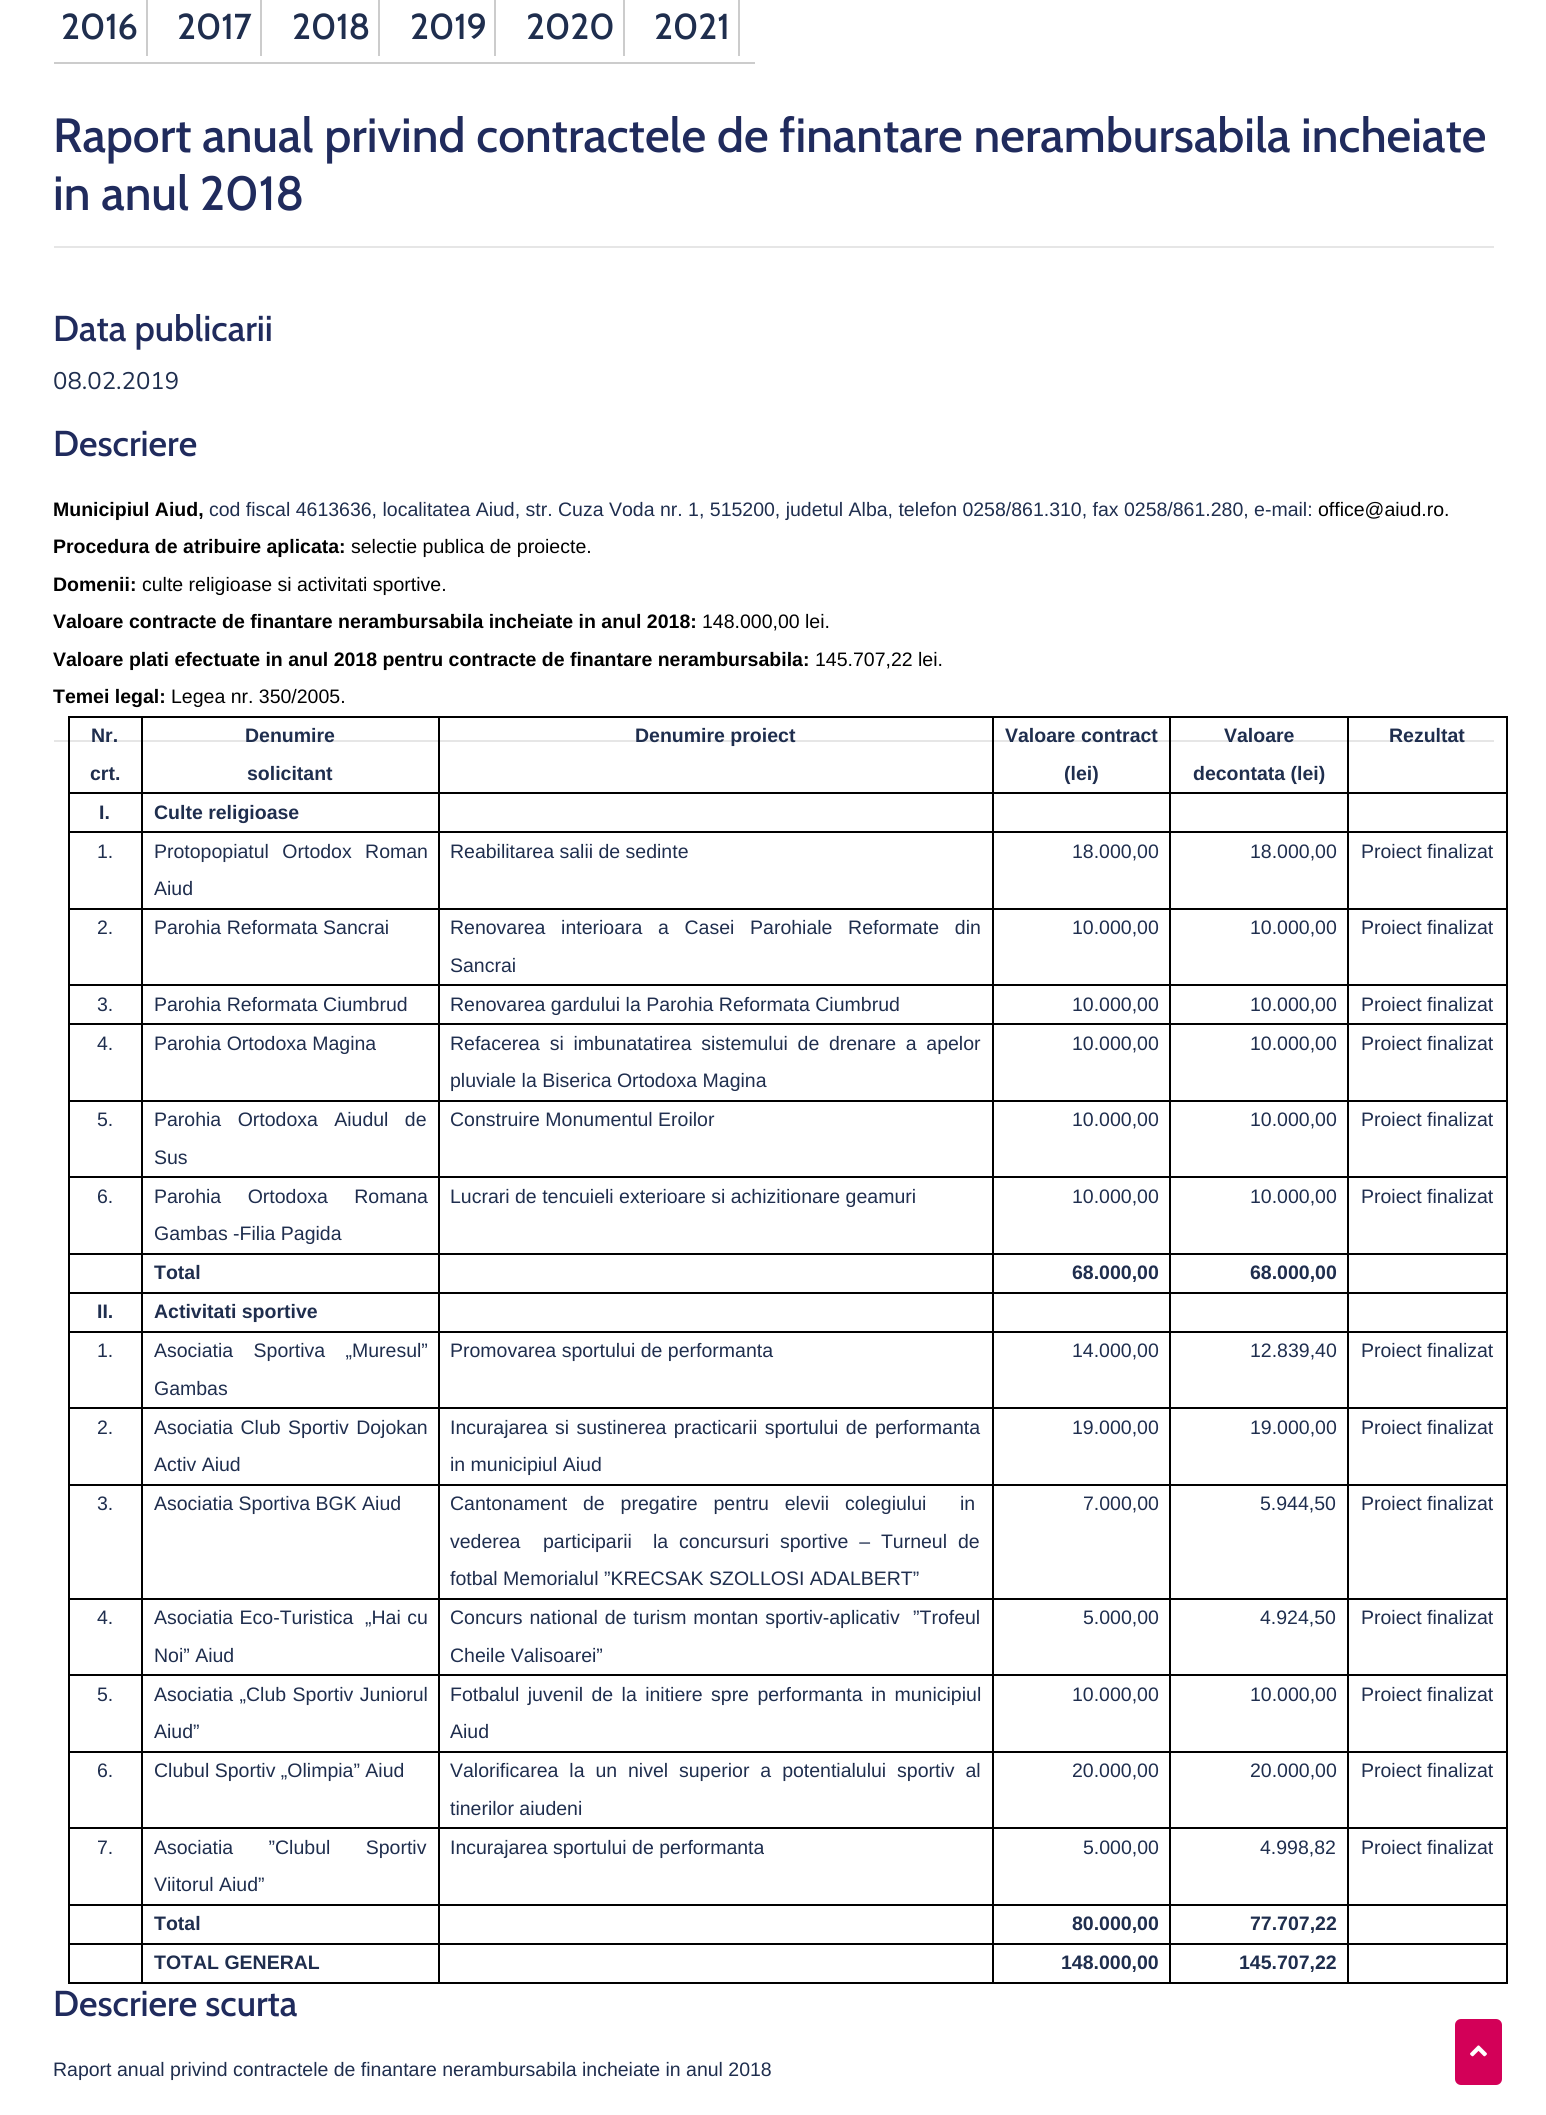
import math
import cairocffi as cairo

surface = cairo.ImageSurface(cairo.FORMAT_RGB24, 1546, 2115)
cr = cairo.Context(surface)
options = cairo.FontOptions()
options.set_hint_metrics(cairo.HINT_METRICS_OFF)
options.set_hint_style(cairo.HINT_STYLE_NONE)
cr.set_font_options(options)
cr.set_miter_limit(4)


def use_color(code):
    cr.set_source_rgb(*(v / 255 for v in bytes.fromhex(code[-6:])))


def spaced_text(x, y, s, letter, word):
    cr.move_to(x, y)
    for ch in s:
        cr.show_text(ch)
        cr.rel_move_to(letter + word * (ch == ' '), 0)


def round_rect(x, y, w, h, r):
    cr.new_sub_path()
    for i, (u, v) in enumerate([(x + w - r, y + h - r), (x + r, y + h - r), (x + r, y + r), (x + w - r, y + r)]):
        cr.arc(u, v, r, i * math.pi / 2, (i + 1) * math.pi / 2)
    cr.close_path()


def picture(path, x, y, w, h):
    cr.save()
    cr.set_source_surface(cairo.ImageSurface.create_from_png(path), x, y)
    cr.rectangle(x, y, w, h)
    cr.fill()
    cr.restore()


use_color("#ffffff")
cr.paint()
use_color("#cccccc")
cr.rectangle(54, 62, 701, 2)
cr.fill()
cr.select_font_face("Cabin Medium")
cr.set_font_size(36)
use_color("#1f2e4e")
cr.move_to(61, 39)
cr.show_text("2016")
use_color("#cccccc")
cr.rectangle(146, 0, 2, 56)
cr.fill()
use_color("#1f2e4e")
cr.move_to(177, 39)
cr.show_text("2017")
use_color("#cccccc")
cr.rectangle(260, 0, 2, 56)
cr.fill()
use_color("#1f2e4e")
cr.move_to(292, 39)
cr.show_text("2018")
use_color("#cccccc")
cr.rectangle(378, 0, 2, 56)
cr.fill()
use_color("#1f2e4e")
cr.move_to(410, 39)
cr.show_text("2019")
use_color("#cccccc")
cr.rectangle(494, 0, 2, 56)
cr.fill()
use_color("#1f2e4e")
cr.move_to(526, 39)
cr.show_text("2020")
use_color("#cccccc")
cr.rectangle(623, 0, 2, 56)
cr.fill()
use_color("#1f2e4e")
cr.move_to(654, 39)
cr.show_text("2021")
use_color("#cccccc")
cr.rectangle(738, 0, 2, 56)
cr.fill()
cr.set_font_size(48)
use_color("#202b5d")
cr.move_to(53, 152)
cr.show_text("Raport anual privind contractele de finantare nerambursabila incheiate")
cr.move_to(53, 210)
cr.show_text("in anul 2018")
use_color("#e6e6e6")
cr.rectangle(54, 246, 1440, 2)
cr.fill()
cr.set_font_size(36)
use_color("#202b5d")
cr.move_to(53, 341)
cr.show_text("Data publicarii")
cr.select_font_face("Nunito")
cr.set_font_size(24)
use_color("#1f2e4e")
cr.move_to(53, 389)
cr.show_text("08.02.2019")
cr.select_font_face("Cabin Medium")
cr.set_font_size(36)
use_color("#202b5d")
cr.move_to(53, 456)
cr.show_text("Descriere")
cr.select_font_face("Liberation Sans", cairo.FONT_SLANT_NORMAL, cairo.FONT_WEIGHT_BOLD)
cr.set_font_size(19.5)
use_color("#000000")
cr.move_to(53, 516)
cr.show_text("Municipiul Aiud,")
cr.select_font_face("Liberation Sans")
use_color("#1f2e4e")
cr.move_to(209, 516)
cr.show_text("cod fiscal 4613636, localitatea Aiud, str. Cuza Voda nr. 1, 515200, judetul Alba, telefon 0258/861.310, fax 0258/861.280, e-mail:")
use_color("#000000")
cr.move_to(1318, 516)
cr.show_text("office@aiud.ro.")
cr.select_font_face("Liberation Sans", cairo.FONT_SLANT_NORMAL, cairo.FONT_WEIGHT_BOLD)
cr.move_to(53, 553)
cr.show_text("Procedura de atribuire aplicata:")
cr.select_font_face("Liberation Sans")
cr.move_to(351, 553)
cr.show_text("selectie publica de proiecte.")
cr.select_font_face("Liberation Sans", cairo.FONT_SLANT_NORMAL, cairo.FONT_WEIGHT_BOLD)
cr.move_to(53, 591)
cr.show_text("Domenii:")
cr.select_font_face("Liberation Sans")
cr.move_to(142, 591)
cr.show_text("culte religioase si activitati sportive.")
cr.select_font_face("Liberation Sans", cairo.FONT_SLANT_NORMAL, cairo.FONT_WEIGHT_BOLD)
cr.move_to(53, 628)
cr.show_text("Valoare contracte de finantare nerambursabila incheiate in anul 2018:")
cr.select_font_face("Liberation Sans")
cr.move_to(702, 628)
cr.show_text("148.000,00 lei.")
cr.select_font_face("Liberation Sans", cairo.FONT_SLANT_NORMAL, cairo.FONT_WEIGHT_BOLD)
cr.move_to(53, 666)
cr.show_text("Valoare plati efectuate in anul 2018 pentru contracte de finantare nerambursabila:")
cr.select_font_face("Liberation Sans")
cr.move_to(815, 666)
cr.show_text("145.707,22 lei.")
cr.select_font_face("Liberation Sans", cairo.FONT_SLANT_NORMAL, cairo.FONT_WEIGHT_BOLD)
cr.move_to(53, 703)
cr.show_text("Temei legal:")
cr.select_font_face("Liberation Sans")
cr.move_to(171, 703)
cr.show_text("Legea nr. 350/2005.")
cr.rectangle(68, 716, 1440, 2)
cr.fill()
cr.rectangle(1506, 831, 2, 1152)
cr.fill()
cr.rectangle(1506, 792, 2, 41)
cr.fill()
cr.rectangle(1506, 716, 2, 78)
cr.fill()
cr.rectangle(1347, 1982, 161, 2)
cr.fill()
cr.rectangle(1347, 1943, 2, 40)
cr.fill()
cr.rectangle(1347, 1943, 161, 2)
cr.fill()
cr.rectangle(1347, 1904, 2, 40)
cr.fill()
cr.rectangle(1347, 1904, 161, 2)
cr.fill()
cr.rectangle(1347, 1827, 2, 78)
cr.fill()
cr.rectangle(1347, 1827, 161, 2)
cr.fill()
cr.rectangle(1347, 1751, 2, 78)
cr.fill()
cr.rectangle(1347, 1751, 161, 2)
cr.fill()
cr.rectangle(1347, 1674, 2, 78)
cr.fill()
cr.rectangle(1347, 1674, 161, 2)
cr.fill()
cr.rectangle(1347, 1598, 2, 78)
cr.fill()
cr.rectangle(1347, 1598, 161, 2)
cr.fill()
cr.rectangle(1347, 1484, 2, 115)
cr.fill()
cr.rectangle(1347, 1484, 161, 2)
cr.fill()
cr.rectangle(1347, 1407, 2, 78)
cr.fill()
cr.rectangle(1347, 1407, 161, 2)
cr.fill()
cr.rectangle(1347, 1331, 2, 78)
cr.fill()
cr.rectangle(1347, 1331, 161, 2)
cr.fill()
cr.rectangle(1347, 1292, 2, 40)
cr.fill()
cr.rectangle(1347, 1292, 161, 2)
cr.fill()
cr.rectangle(1347, 1253, 2, 40)
cr.fill()
cr.rectangle(1347, 1253, 161, 2)
cr.fill()
cr.rectangle(1347, 1176, 2, 78)
cr.fill()
cr.rectangle(1347, 1176, 161, 2)
cr.fill()
cr.rectangle(1347, 1100, 2, 78)
cr.fill()
cr.rectangle(1347, 1100, 161, 2)
cr.fill()
cr.rectangle(1347, 1023, 2, 78)
cr.fill()
cr.rectangle(1347, 1023, 161, 2)
cr.fill()
cr.rectangle(1347, 984, 2, 41)
cr.fill()
cr.rectangle(1347, 984, 161, 2)
cr.fill()
cr.rectangle(1347, 908, 2, 78)
cr.fill()
cr.rectangle(1347, 908, 161, 2)
cr.fill()
cr.rectangle(1347, 831, 2, 78)
cr.fill()
cr.rectangle(1347, 831, 161, 2)
cr.fill()
cr.rectangle(1347, 792, 2, 41)
cr.fill()
cr.rectangle(1347, 792, 161, 2)
cr.fill()
use_color("#e6e6e6")
cr.rectangle(54, 740, 1440, 2)
cr.fill()
use_color("#000000")
cr.rectangle(1347, 716, 2, 78)
cr.fill()
cr.rectangle(1169, 1982, 180, 2)
cr.fill()
cr.rectangle(1169, 1943, 2, 40)
cr.fill()
cr.rectangle(1169, 1943, 180, 2)
cr.fill()
cr.rectangle(1169, 1904, 2, 40)
cr.fill()
cr.rectangle(1169, 1904, 180, 2)
cr.fill()
cr.rectangle(1169, 1827, 2, 78)
cr.fill()
cr.rectangle(1169, 1827, 180, 2)
cr.fill()
cr.rectangle(1169, 1751, 2, 78)
cr.fill()
cr.rectangle(1169, 1751, 180, 2)
cr.fill()
cr.rectangle(1169, 1674, 2, 78)
cr.fill()
cr.rectangle(1169, 1674, 180, 2)
cr.fill()
cr.rectangle(1169, 1598, 2, 78)
cr.fill()
cr.rectangle(1169, 1598, 180, 2)
cr.fill()
cr.rectangle(1169, 1484, 2, 115)
cr.fill()
cr.rectangle(1169, 1484, 180, 2)
cr.fill()
cr.rectangle(1169, 1407, 2, 78)
cr.fill()
cr.rectangle(1169, 1407, 180, 2)
cr.fill()
cr.rectangle(1169, 1331, 2, 78)
cr.fill()
cr.rectangle(1169, 1331, 180, 2)
cr.fill()
cr.rectangle(1169, 1292, 2, 40)
cr.fill()
cr.rectangle(1169, 1292, 180, 2)
cr.fill()
cr.rectangle(1169, 1253, 2, 40)
cr.fill()
cr.rectangle(1169, 1253, 180, 2)
cr.fill()
cr.rectangle(1169, 1176, 2, 78)
cr.fill()
cr.rectangle(1169, 1176, 180, 2)
cr.fill()
cr.rectangle(1169, 1100, 2, 78)
cr.fill()
cr.rectangle(1169, 1100, 180, 2)
cr.fill()
cr.rectangle(1169, 1023, 2, 78)
cr.fill()
cr.rectangle(1169, 1023, 180, 2)
cr.fill()
cr.rectangle(1169, 984, 2, 41)
cr.fill()
cr.rectangle(1169, 984, 180, 2)
cr.fill()
cr.rectangle(1169, 908, 2, 78)
cr.fill()
cr.rectangle(1169, 908, 180, 2)
cr.fill()
cr.rectangle(1169, 831, 2, 78)
cr.fill()
cr.rectangle(1169, 831, 180, 2)
cr.fill()
cr.rectangle(1169, 792, 2, 41)
cr.fill()
cr.rectangle(1169, 792, 180, 2)
cr.fill()
cr.rectangle(1169, 716, 2, 78)
cr.fill()
cr.rectangle(992, 1982, 178, 2)
cr.fill()
cr.rectangle(992, 1943, 2, 40)
cr.fill()
cr.rectangle(992, 1943, 178, 2)
cr.fill()
cr.rectangle(992, 1904, 2, 40)
cr.fill()
cr.rectangle(992, 1904, 178, 2)
cr.fill()
cr.rectangle(992, 1827, 2, 78)
cr.fill()
cr.rectangle(992, 1827, 178, 2)
cr.fill()
cr.rectangle(992, 1751, 2, 78)
cr.fill()
cr.rectangle(992, 1751, 178, 2)
cr.fill()
cr.rectangle(992, 1674, 2, 78)
cr.fill()
cr.rectangle(992, 1674, 178, 2)
cr.fill()
cr.rectangle(992, 1598, 2, 78)
cr.fill()
cr.rectangle(992, 1598, 178, 2)
cr.fill()
cr.rectangle(992, 1484, 2, 115)
cr.fill()
cr.rectangle(992, 1484, 178, 2)
cr.fill()
cr.rectangle(992, 1407, 2, 78)
cr.fill()
cr.rectangle(992, 1407, 178, 2)
cr.fill()
cr.rectangle(992, 1331, 2, 78)
cr.fill()
cr.rectangle(992, 1331, 178, 2)
cr.fill()
cr.rectangle(992, 1292, 2, 40)
cr.fill()
cr.rectangle(992, 1292, 178, 2)
cr.fill()
cr.rectangle(992, 1253, 2, 40)
cr.fill()
cr.rectangle(992, 1253, 178, 2)
cr.fill()
cr.rectangle(992, 1176, 2, 78)
cr.fill()
cr.rectangle(992, 1176, 178, 2)
cr.fill()
cr.rectangle(992, 1100, 2, 78)
cr.fill()
cr.rectangle(992, 1100, 178, 2)
cr.fill()
cr.rectangle(992, 1023, 2, 78)
cr.fill()
cr.rectangle(992, 1023, 178, 2)
cr.fill()
cr.rectangle(992, 984, 2, 41)
cr.fill()
cr.rectangle(992, 984, 178, 2)
cr.fill()
cr.rectangle(992, 908, 2, 78)
cr.fill()
cr.rectangle(992, 908, 178, 2)
cr.fill()
cr.rectangle(992, 831, 2, 78)
cr.fill()
cr.rectangle(992, 831, 178, 2)
cr.fill()
cr.rectangle(992, 792, 2, 41)
cr.fill()
cr.rectangle(992, 792, 178, 2)
cr.fill()
cr.rectangle(992, 716, 2, 78)
cr.fill()
cr.rectangle(438, 1982, 555, 2)
cr.fill()
cr.rectangle(438, 1943, 2, 40)
cr.fill()
cr.rectangle(438, 1943, 555, 2)
cr.fill()
cr.rectangle(438, 1904, 2, 40)
cr.fill()
cr.rectangle(438, 1904, 555, 2)
cr.fill()
cr.rectangle(438, 1827, 2, 78)
cr.fill()
cr.rectangle(438, 1827, 555, 2)
cr.fill()
cr.rectangle(438, 1751, 2, 78)
cr.fill()
cr.rectangle(438, 1751, 555, 2)
cr.fill()
cr.rectangle(438, 1674, 2, 78)
cr.fill()
cr.rectangle(438, 1674, 555, 2)
cr.fill()
cr.rectangle(438, 1598, 2, 78)
cr.fill()
cr.rectangle(438, 1598, 555, 2)
cr.fill()
cr.rectangle(438, 1484, 2, 115)
cr.fill()
cr.rectangle(438, 1484, 555, 2)
cr.fill()
cr.rectangle(438, 1407, 2, 78)
cr.fill()
cr.rectangle(438, 1407, 555, 2)
cr.fill()
cr.rectangle(438, 1331, 2, 78)
cr.fill()
cr.rectangle(438, 1331, 555, 2)
cr.fill()
cr.rectangle(438, 1292, 2, 40)
cr.fill()
cr.rectangle(438, 1292, 555, 2)
cr.fill()
cr.rectangle(438, 1253, 2, 40)
cr.fill()
cr.rectangle(438, 1253, 555, 2)
cr.fill()
cr.rectangle(438, 1176, 2, 78)
cr.fill()
cr.rectangle(438, 1176, 555, 2)
cr.fill()
cr.rectangle(438, 1100, 2, 78)
cr.fill()
cr.rectangle(438, 1100, 555, 2)
cr.fill()
cr.rectangle(438, 1023, 2, 78)
cr.fill()
cr.rectangle(438, 1023, 555, 2)
cr.fill()
cr.rectangle(438, 984, 2, 41)
cr.fill()
cr.rectangle(438, 984, 555, 2)
cr.fill()
cr.rectangle(438, 908, 2, 78)
cr.fill()
cr.rectangle(438, 908, 555, 2)
cr.fill()
cr.rectangle(438, 831, 2, 78)
cr.fill()
cr.rectangle(438, 831, 555, 2)
cr.fill()
cr.rectangle(438, 792, 2, 41)
cr.fill()
cr.rectangle(438, 792, 555, 2)
cr.fill()
cr.rectangle(438, 716, 2, 78)
cr.fill()
cr.rectangle(141, 1982, 299, 2)
cr.fill()
cr.rectangle(141, 1943, 2, 40)
cr.fill()
cr.rectangle(141, 1943, 299, 2)
cr.fill()
cr.rectangle(141, 1904, 2, 40)
cr.fill()
cr.rectangle(141, 1904, 299, 2)
cr.fill()
cr.rectangle(141, 1827, 2, 78)
cr.fill()
cr.rectangle(141, 1827, 299, 2)
cr.fill()
cr.rectangle(141, 1751, 2, 78)
cr.fill()
cr.rectangle(141, 1751, 299, 2)
cr.fill()
cr.rectangle(141, 1674, 2, 78)
cr.fill()
cr.rectangle(141, 1674, 299, 2)
cr.fill()
cr.rectangle(141, 1598, 2, 78)
cr.fill()
cr.rectangle(141, 1598, 299, 2)
cr.fill()
cr.rectangle(141, 1484, 2, 115)
cr.fill()
cr.rectangle(141, 1484, 299, 2)
cr.fill()
cr.rectangle(141, 1407, 2, 78)
cr.fill()
cr.rectangle(141, 1407, 299, 2)
cr.fill()
cr.rectangle(141, 1331, 2, 78)
cr.fill()
cr.rectangle(141, 1331, 299, 2)
cr.fill()
cr.rectangle(141, 1292, 2, 40)
cr.fill()
cr.rectangle(141, 1292, 299, 2)
cr.fill()
cr.rectangle(141, 1253, 2, 40)
cr.fill()
cr.rectangle(141, 1253, 299, 2)
cr.fill()
cr.rectangle(141, 1176, 2, 78)
cr.fill()
cr.rectangle(141, 1176, 299, 2)
cr.fill()
cr.rectangle(141, 1100, 2, 78)
cr.fill()
cr.rectangle(141, 1100, 299, 2)
cr.fill()
cr.rectangle(141, 1023, 2, 78)
cr.fill()
cr.rectangle(141, 1023, 299, 2)
cr.fill()
cr.rectangle(141, 984, 2, 41)
cr.fill()
cr.rectangle(141, 984, 299, 2)
cr.fill()
cr.rectangle(141, 908, 2, 78)
cr.fill()
cr.rectangle(141, 908, 299, 2)
cr.fill()
cr.rectangle(141, 831, 2, 78)
cr.fill()
cr.rectangle(141, 831, 299, 2)
cr.fill()
cr.rectangle(141, 792, 2, 41)
cr.fill()
cr.rectangle(141, 792, 299, 2)
cr.fill()
cr.rectangle(141, 716, 2, 78)
cr.fill()
cr.rectangle(68, 1982, 75, 2)
cr.fill()
cr.rectangle(68, 1943, 2, 40)
cr.fill()
cr.rectangle(68, 1943, 75, 2)
cr.fill()
cr.rectangle(68, 1904, 2, 40)
cr.fill()
cr.rectangle(68, 1904, 75, 2)
cr.fill()
cr.rectangle(68, 1827, 2, 78)
cr.fill()
cr.rectangle(68, 1827, 75, 2)
cr.fill()
cr.rectangle(68, 1751, 2, 78)
cr.fill()
cr.rectangle(68, 1751, 75, 2)
cr.fill()
cr.rectangle(68, 1674, 2, 78)
cr.fill()
cr.rectangle(68, 1674, 75, 2)
cr.fill()
cr.rectangle(68, 1598, 2, 78)
cr.fill()
cr.rectangle(68, 1598, 75, 2)
cr.fill()
cr.rectangle(68, 1484, 2, 115)
cr.fill()
cr.rectangle(68, 1484, 75, 2)
cr.fill()
cr.rectangle(68, 1407, 2, 78)
cr.fill()
cr.rectangle(68, 1407, 75, 2)
cr.fill()
cr.rectangle(68, 1331, 2, 78)
cr.fill()
cr.rectangle(68, 1331, 75, 2)
cr.fill()
cr.rectangle(68, 1292, 2, 40)
cr.fill()
cr.rectangle(68, 1292, 75, 2)
cr.fill()
cr.rectangle(68, 1253, 2, 40)
cr.fill()
cr.rectangle(68, 1253, 75, 2)
cr.fill()
cr.rectangle(68, 1176, 2, 78)
cr.fill()
cr.rectangle(68, 1176, 75, 2)
cr.fill()
cr.rectangle(68, 1100, 2, 78)
cr.fill()
cr.rectangle(68, 1100, 75, 2)
cr.fill()
cr.rectangle(68, 1023, 2, 78)
cr.fill()
cr.rectangle(68, 1023, 75, 2)
cr.fill()
cr.rectangle(68, 984, 2, 41)
cr.fill()
cr.rectangle(68, 984, 75, 2)
cr.fill()
cr.rectangle(68, 908, 2, 78)
cr.fill()
cr.rectangle(68, 908, 75, 2)
cr.fill()
cr.rectangle(68, 831, 2, 78)
cr.fill()
cr.rectangle(68, 831, 75, 2)
cr.fill()
cr.rectangle(68, 792, 2, 41)
cr.fill()
cr.rectangle(68, 792, 75, 2)
cr.fill()
cr.rectangle(68, 716, 2, 78)
cr.fill()
cr.select_font_face("Liberation Sans", cairo.FONT_SLANT_NORMAL, cairo.FONT_WEIGHT_BOLD)
use_color("#1f2e4e")
cr.move_to(91, 742)
cr.show_text("Nr.")
cr.move_to(90, 780)
cr.show_text("crt.")
cr.move_to(245, 742)
cr.show_text("Denumire")
cr.move_to(247, 780)
cr.show_text("solicitant")
cr.move_to(635, 742)
cr.show_text("Denumire proiect")
cr.move_to(1005, 742)
cr.show_text("Valoare contract")
cr.move_to(1064, 780)
cr.show_text("(lei)")
cr.move_to(1224, 742)
cr.show_text("Valoare")
cr.move_to(1193, 780)
cr.show_text("decontata (lei)")
cr.move_to(1389, 742)
cr.show_text("Rezultat")
cr.move_to(99, 819)
cr.show_text("I.")
cr.move_to(154, 819)
cr.show_text("Culte religioase")
cr.select_font_face("Liberation Sans")
cr.move_to(97, 858)
cr.show_text("1.")
spaced_text(154, 858, "Protopopiatul Ortodox Roman", 0, 8)
cr.move_to(154, 895)
cr.show_text("Aiud")
cr.move_to(450, 858)
cr.show_text("Reabilitarea salii de sedinte")
cr.move_to(1072, 858)
cr.show_text("18.000,00")
cr.move_to(1250, 858)
cr.show_text("18.000,00")
cr.move_to(1361, 858)
cr.show_text("Proiect finalizat")
cr.move_to(97, 934)
cr.show_text("2.")
cr.move_to(154, 934)
cr.show_text("Parohia Reformata Sancrai")
spaced_text(450, 934, "Renovarea interioara a Casei Parohiale Reformate din", 0, 10.25)
cr.move_to(450, 972)
cr.show_text("Sancrai")
cr.move_to(1072, 934)
cr.show_text("10.000,00")
cr.move_to(1250, 934)
cr.show_text("10.000,00")
cr.move_to(1361, 934)
cr.show_text("Proiect finalizat")
cr.move_to(97, 1011)
cr.show_text("3.")
cr.move_to(154, 1011)
cr.show_text("Parohia Reformata Ciumbrud")
cr.move_to(450, 1011)
cr.show_text("Renovarea gardului la Parohia Reformata Ciumbrud")
cr.move_to(1072, 1011)
cr.show_text("10.000,00")
cr.move_to(1250, 1011)
cr.show_text("10.000,00")
cr.move_to(1361, 1011)
cr.show_text("Proiect finalizat")
cr.move_to(97, 1050)
cr.show_text("4.")
cr.move_to(154, 1050)
cr.show_text("Parohia Ortodoxa Magina")
spaced_text(450, 1050, "Refacerea si imbunatatirea sistemului de drenare a apelor", 0, 4.25)
cr.move_to(450, 1087)
cr.show_text("pluviale la Biserica Ortodoxa Magina")
cr.move_to(1072, 1050)
cr.show_text("10.000,00")
cr.move_to(1250, 1050)
cr.show_text("10.000,00")
cr.move_to(1361, 1050)
cr.show_text("Proiect finalizat")
cr.move_to(97, 1126)
cr.show_text("5.")
spaced_text(154, 1126, "Parohia Ortodoxa Aiudul de", 0, 11)
cr.move_to(154, 1164)
cr.show_text("Sus")
cr.move_to(450, 1126)
cr.show_text("Construire Monumentul Eroilor")
cr.move_to(1072, 1126)
cr.show_text("10.000,00")
cr.move_to(1250, 1126)
cr.show_text("10.000,00")
cr.move_to(1361, 1126)
cr.show_text("Proiect finalizat")
cr.move_to(97, 1203)
cr.show_text("6.")
spaced_text(154, 1203, "Parohia Ortodoxa Romana", 0, 21)
cr.move_to(154, 1240)
cr.show_text("Gambas -Filia Pagida")
cr.move_to(450, 1203)
cr.show_text("Lucrari de tencuieli exterioare si achizitionare geamuri")
cr.move_to(1072, 1203)
cr.show_text("10.000,00")
cr.move_to(1250, 1203)
cr.show_text("10.000,00")
cr.move_to(1361, 1203)
cr.show_text("Proiect finalizat")
cr.select_font_face("Liberation Sans", cairo.FONT_SLANT_NORMAL, cairo.FONT_WEIGHT_BOLD)
cr.move_to(154, 1279)
cr.show_text("Total")
cr.move_to(1072, 1279)
cr.show_text("68.000,00")
cr.move_to(1250, 1279)
cr.show_text("68.000,00")
cr.move_to(97, 1318)
cr.show_text("II.")
cr.move_to(154, 1318)
cr.show_text("Activitati sportive")
cr.select_font_face("Liberation Sans")
cr.move_to(97, 1357)
cr.show_text("1.")
spaced_text(154, 1357, "Asociatia Sportiva „Muresul”", 0, 15)
cr.move_to(154, 1395)
cr.show_text("Gambas")
cr.move_to(450, 1357)
cr.show_text("Promovarea sportului de performanta")
cr.move_to(1072, 1357)
cr.show_text("14.000,00")
cr.move_to(1250, 1357)
cr.show_text("12.839,40")
cr.move_to(1361, 1357)
cr.show_text("Proiect finalizat")
cr.move_to(97, 1434)
cr.show_text("2.")
spaced_text(154, 1434, "Asociatia Club Sportiv Dojokan", 0, 2)
cr.move_to(154, 1471)
cr.show_text("Activ Aiud")
spaced_text(450, 1434, "Incurajarea si sustinerea practicarii sportului de performanta", 0, 2)
cr.move_to(450, 1471)
cr.show_text("in municipiul Aiud")
cr.move_to(1072, 1434)
cr.show_text("19.000,00")
cr.move_to(1250, 1434)
cr.show_text("19.000,00")
cr.move_to(1361, 1434)
cr.show_text("Proiect finalizat")
cr.move_to(97, 1510)
cr.show_text("3.")
cr.move_to(154, 1510)
cr.show_text("Asociatia Sportiva BGK Aiud")
spaced_text(450, 1510, "Cantonament de pregatire pentru elevii colegiului", 0, 10.5)
cr.move_to(960, 1510)
cr.show_text("in")
cr.move_to(450, 1548)
cr.show_text("vederea")
cr.move_to(543, 1548)
cr.show_text("participarii")
spaced_text(653, 1548, "la concursuri sportive – Turneul de", 0, 5.5)
cr.move_to(450, 1585)
cr.show_text("fotbal Memorialul ”KRECSAK SZOLLOSI ADALBERT”")
cr.move_to(1083, 1510)
cr.show_text("7.000,00")
cr.move_to(1260, 1510)
cr.show_text("5.944,50")
cr.move_to(1361, 1510)
cr.show_text("Proiect finalizat")
cr.move_to(97, 1624)
cr.show_text("4.")
spaced_text(154, 1624, "Asociatia Eco-Turistica", 0, 1)
spaced_text(365, 1624, "„Hai cu", 0, 1)
cr.move_to(154, 1662)
cr.show_text("Noi” Aiud")
spaced_text(450, 1624, "Concurs national de turism montan sportiv-aplicativ", 0, 1.5)
cr.move_to(913, 1624)
cr.show_text("”Trofeul")
cr.move_to(450, 1662)
cr.show_text("Cheile Valisoarei”")
cr.move_to(1083, 1624)
cr.show_text("5.000,00")
cr.move_to(1260, 1624)
cr.show_text("4.924,50")
cr.move_to(1361, 1624)
cr.show_text("Proiect finalizat")
cr.move_to(97, 1701)
cr.show_text("5.")
spaced_text(154, 1701, "Asociatia „Club Sportiv Juniorul", 0, 1)
cr.move_to(154, 1738)
cr.show_text("Aiud”")
spaced_text(450, 1701, "Fotbalul juvenil de la initiere spre performanta in municipiul", 0, 3)
cr.move_to(450, 1738)
cr.show_text("Aiud")
cr.move_to(1072, 1701)
cr.show_text("10.000,00")
cr.move_to(1250, 1701)
cr.show_text("10.000,00")
cr.move_to(1361, 1701)
cr.show_text("Proiect finalizat")
cr.move_to(97, 1777)
cr.show_text("6.")
cr.move_to(154, 1777)
cr.show_text("Clubul Sportiv „Olimpia” Aiud")
spaced_text(450, 1777, "Valorificarea la un nivel superior a potentialului sportiv al", 0, 5.5)
cr.move_to(450, 1815)
cr.show_text("tinerilor aiudeni")
cr.move_to(1072, 1777)
cr.show_text("20.000,00")
cr.move_to(1250, 1777)
cr.show_text("20.000,00")
cr.move_to(1361, 1777)
cr.show_text("Proiect finalizat")
cr.move_to(97, 1854)
cr.show_text("7.")
spaced_text(154, 1854, "Asociatia ”Clubul Sportiv", 0, 30)
cr.move_to(154, 1891)
cr.show_text("Viitorul Aiud”")
cr.move_to(450, 1854)
cr.show_text("Incurajarea sportului de performanta")
cr.move_to(1083, 1854)
cr.show_text("5.000,00")
cr.move_to(1260, 1854)
cr.show_text("4.998,82")
cr.move_to(1361, 1854)
cr.show_text("Proiect finalizat")
cr.select_font_face("Liberation Sans", cairo.FONT_SLANT_NORMAL, cairo.FONT_WEIGHT_BOLD)
cr.move_to(154, 1930)
cr.show_text("Total")
cr.move_to(1072, 1930)
cr.show_text("80.000,00")
cr.move_to(1250, 1930)
cr.show_text("77.707,22")
cr.move_to(154, 1969)
cr.show_text("TOTAL GENERAL")
cr.move_to(1061, 1969)
cr.show_text("148.000,00")
cr.move_to(1239, 1969)
cr.show_text("145.707,22")
cr.select_font_face("Cabin Medium")
cr.set_font_size(36)
use_color("#202b5d")
cr.move_to(53, 2016)
cr.show_text("Descriere scurta")
cr.select_font_face("Liberation Sans")
cr.set_font_size(19.5)
use_color("#1f2e4e")
cr.move_to(53, 2076)
cr.show_text("Raport anual privind contractele de finantare nerambursabila incheiate in anul 2018")
use_color("#d30058")
round_rect(1455, 2019, 47, 66, 6)
cr.fill()
picture("img1.png", 1470, 2045, 17, 12)
surface.write_to_png("result.png")
